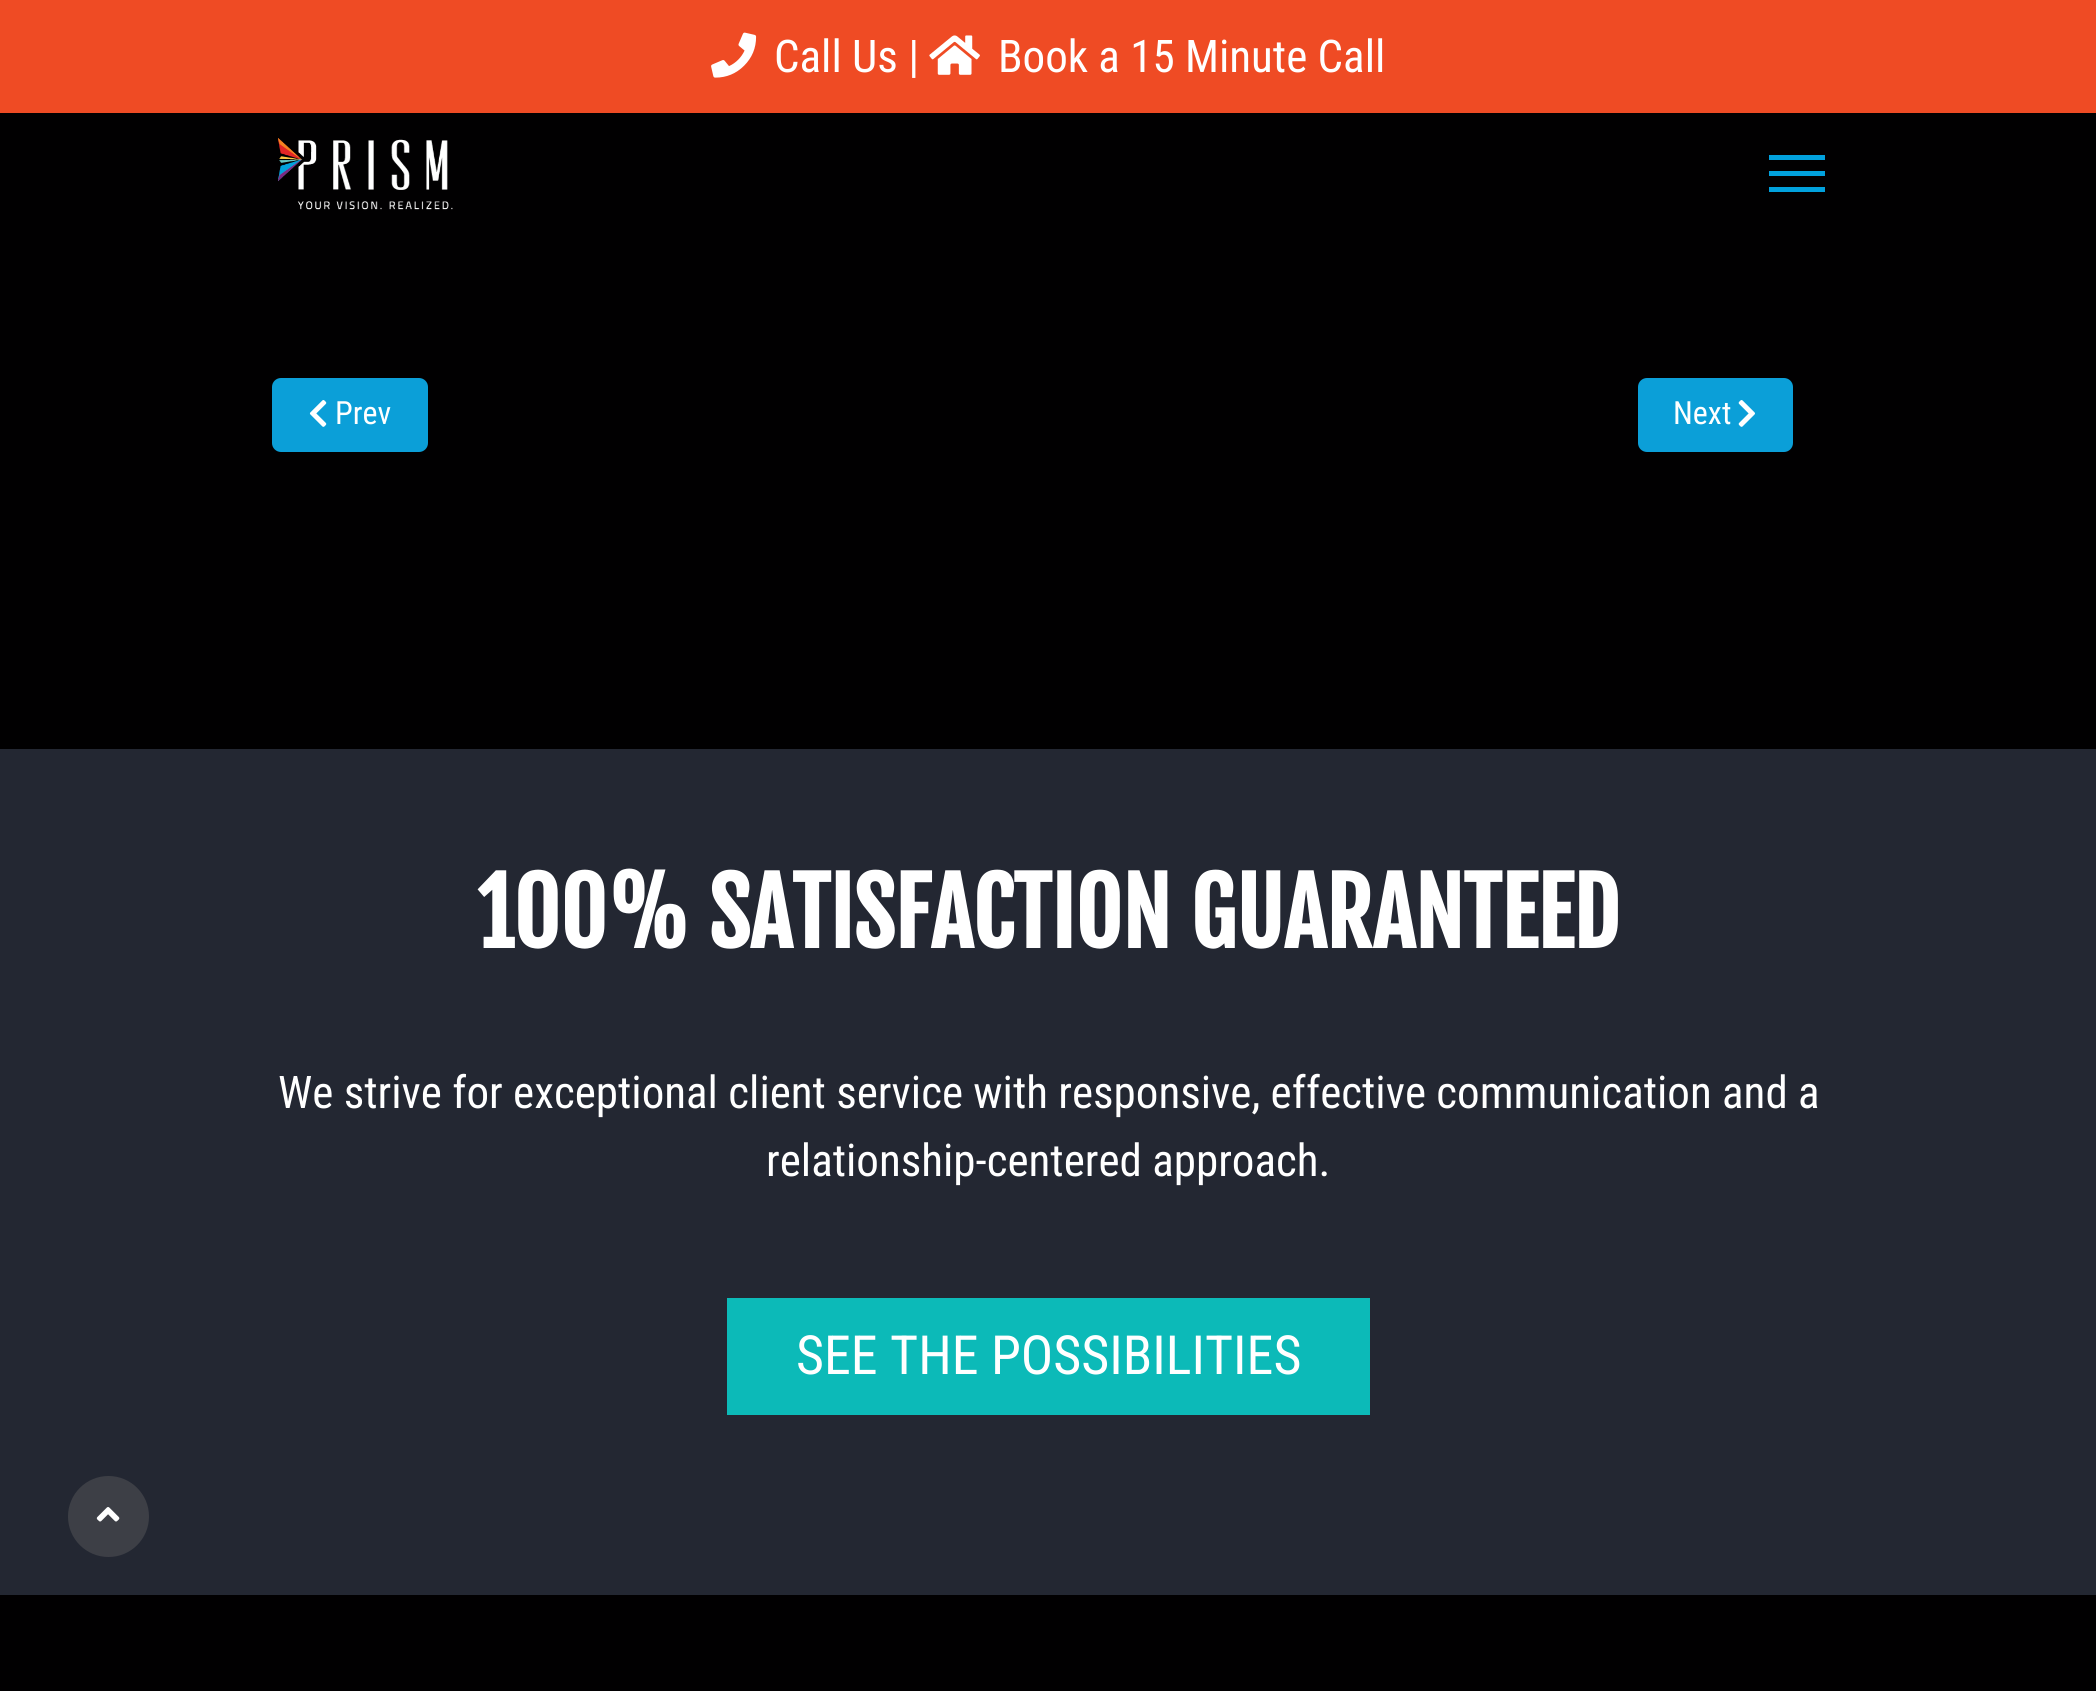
import math
import cairocffi as cairo

surface = cairo.ImageSurface(cairo.FORMAT_RGB24, 2096, 1691)
cr = cairo.Context(surface)
options = cairo.FontOptions()
options.set_hint_metrics(cairo.HINT_METRICS_OFF)
options.set_hint_style(cairo.HINT_STYLE_NONE)
cr.set_font_options(options)
cr.set_miter_limit(4)


def use_color(code):
    cr.set_source_rgb(*(v / 255 for v in bytes.fromhex(code[-6:])))


def round_rect(x, y, w, h, r):
    cr.new_sub_path()
    for i, (u, v) in enumerate([(x + w - r, y + h - r), (x + r, y + h - r), (x + r, y + r), (x + w - r, y + r)]):
        cr.arc(u, v, r, i * math.pi / 2, (i + 1) * math.pi / 2)
    cr.close_path()


def picture(path, x, y, w, h):
    cr.save()
    cr.set_source_surface(cairo.ImageSurface.create_from_png(path), x, y)
    cr.rectangle(x, y, w, h)
    cr.fill()
    cr.restore()


use_color("#010001")
cr.paint()
use_color("#ef4b24")
cr.rectangle(0, 0, 2096, 113)
cr.fill()
picture("img1.png", 711, 32, 46, 46)
cr.select_font_face("Roboto Condensed")
cr.set_font_size(45)
use_color("#ffffff")
cr.move_to(774, 72)
cr.show_text("Call Us |")
picture("img2.png", 929, 35, 51, 40)
cr.move_to(998, 72)
cr.show_text("Book a 15 Minute Call")
picture("img3.png", 278, 138, 175, 72)
use_color("#01a1dd")
cr.rectangle(1769, 155, 56, 5)
cr.fill()
cr.rectangle(1769, 171, 56, 5)
cr.fill()
cr.rectangle(1769, 187, 56, 5)
cr.fill()
use_color("#0b9fd8")
round_rect(273, 379, 154, 72, 8)
cr.fill_preserve()
cr.stroke()
picture("img4.png", 309, 400, 18, 27)
cr.set_font_size(32)
use_color("#ffffff")
cr.move_to(335, 424)
cr.show_text("Prev")
use_color("#0b9fd8")
round_rect(1639, 379, 153, 72, 8)
cr.fill_preserve()
cr.stroke()
use_color("#ffffff")
cr.move_to(1673, 424)
cr.show_text("Next")
picture("img5.png", 1738, 400, 17, 27)
use_color("#232732")
cr.rectangle(0, 749, 2096, 846)
cr.fill()
cr.select_font_face("Fjalla One", cairo.FONT_SLANT_NORMAL, cairo.FONT_WEIGHT_BOLD)
cr.set_font_size(90)
use_color("#ffffff")
cr.move_to(477, 948)
cr.show_text("100% SATISFACTION GUARANTEED")
cr.select_font_face("Roboto Condensed")
cr.set_font_size(45)
cr.move_to(278, 1108)
cr.show_text("We strive for exceptional client service with responsive, effective communication and a")
cr.move_to(766, 1176)
cr.show_text("relationship-centered approach.")
use_color("#0cbab8")
cr.rectangle(727, 1298, 643, 117)
cr.fill()
cr.set_font_size(54)
use_color("#ffffff")
cr.move_to(796, 1374)
cr.show_text("SEE THE POSSIBILITIES")
use_color("#3d3f46")
cr.new_path()
cr.arc(108.5, 1516.5, 40.5, 0, 2 * math.pi)
cr.fill()
picture("img6.png", 96, 1507, 24, 15)
surface.write_to_png("result.png")
